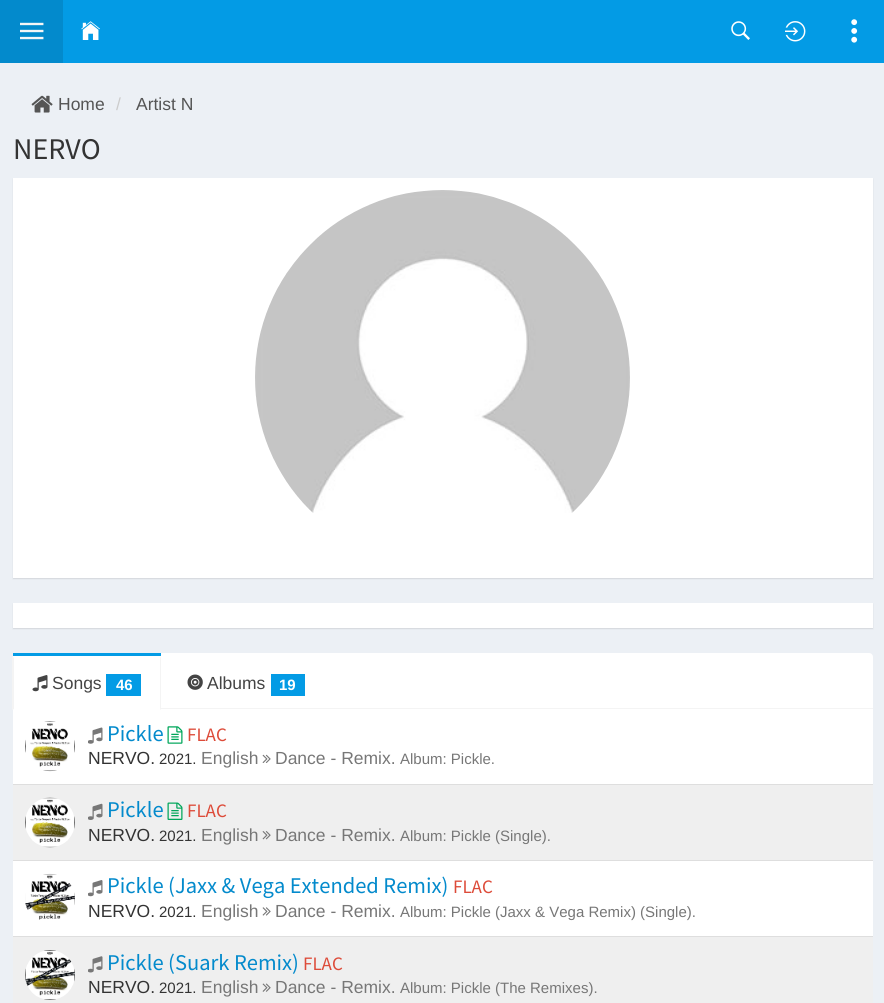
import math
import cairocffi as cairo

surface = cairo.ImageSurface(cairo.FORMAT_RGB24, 884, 1003)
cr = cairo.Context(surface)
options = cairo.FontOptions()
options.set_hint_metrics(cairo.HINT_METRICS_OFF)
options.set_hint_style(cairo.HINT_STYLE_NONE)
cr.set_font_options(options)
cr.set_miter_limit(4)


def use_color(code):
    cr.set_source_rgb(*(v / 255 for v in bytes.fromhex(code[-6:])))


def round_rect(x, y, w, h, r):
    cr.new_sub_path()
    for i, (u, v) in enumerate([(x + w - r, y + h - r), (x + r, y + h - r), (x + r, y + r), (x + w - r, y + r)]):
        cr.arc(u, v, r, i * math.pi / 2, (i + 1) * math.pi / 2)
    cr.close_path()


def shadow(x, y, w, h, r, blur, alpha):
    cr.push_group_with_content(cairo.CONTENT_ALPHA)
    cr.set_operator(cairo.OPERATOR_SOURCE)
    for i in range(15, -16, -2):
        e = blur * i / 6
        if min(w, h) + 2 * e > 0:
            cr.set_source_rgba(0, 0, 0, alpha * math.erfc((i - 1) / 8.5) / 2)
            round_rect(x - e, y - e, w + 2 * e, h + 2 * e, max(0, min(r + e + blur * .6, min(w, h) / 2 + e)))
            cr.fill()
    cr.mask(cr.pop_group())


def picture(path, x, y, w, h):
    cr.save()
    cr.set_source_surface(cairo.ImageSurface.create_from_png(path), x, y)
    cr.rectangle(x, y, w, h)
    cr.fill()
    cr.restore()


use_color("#ecf0f5")
cr.paint()
use_color("#039be5")
cr.rectangle(63, 0, 821, 63)
cr.fill()
use_color("#038acc")
cr.rectangle(0, 0, 63, 63)
cr.fill()
picture("img1.png", 20, 22, 24, 18)
picture("img2.png", 81, 21, 19, 19)
picture("img3.png", 731, 21, 19, 19)
picture("img4.png", 785, 21, 21, 21)
picture("img5.png", 851, 19, 7, 24)
picture("img6.png", 31, 95, 22, 18)
cr.select_font_face("Liberation Sans")
cr.set_font_size(17.5)
use_color("#555555")
cr.move_to(58, 110)
cr.show_text("Home")
use_color("#cccccc")
cr.move_to(116, 110)
cr.show_text("/")
use_color("#555555")
cr.move_to(136, 110)
cr.show_text("Artist N")
cr.select_font_face("Source Sans Pro")
cr.set_font_size(30)
use_color("#333333")
cr.move_to(13, 159)
cr.show_text("NERVO")
use_color("#000000")
shadow(13, 179, 860, 400, 0, 0.5, 0.1)
use_color("#ffffff")
cr.rectangle(13, 178, 860, 400)
cr.fill()
picture("img7.png", 255, 190, 375, 323)
use_color("#000000")
shadow(13, 604, 860, 25, 0, 0.5, 0.1)
use_color("#ffffff")
cr.rectangle(13, 603, 860, 25)
cr.fill()
round_rect(13, 653, 860, 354, 4)
cr.fill()
use_color("#f4f4f4")
cr.rectangle(161, 708, 712, 1)
cr.fill()
use_color("#039be5")
cr.rectangle(13, 653, 148, 3)
cr.fill()
use_color("#f4f4f4")
cr.new_path()
cr.move_to(161, 656)
cr.line_to(161, 710)
cr.line_to(160, 709)
cr.line_to(160, 658)
cr.close_path()
cr.fill()
cr.new_path()
cr.move_to(12, 710)
cr.line_to(12, 656)
cr.line_to(14, 658)
cr.line_to(14, 709)
cr.close_path()
cr.fill()
picture("img8.png", 32, 675, 16, 17)
cr.select_font_face("Liberation Sans")
cr.set_font_size(17.5)
use_color("#444444")
cr.move_to(52, 689)
cr.show_text("Songs")
use_color("#039be5")
cr.rectangle(106, 674, 35, 22)
cr.fill()
cr.select_font_face("Liberation Sans", cairo.FONT_SLANT_NORMAL, cairo.FONT_WEIGHT_BOLD)
cr.set_font_size(15)
use_color("#ffffff")
cr.move_to(116, 690)
cr.show_text("46")
picture("img9.png", 187, 674, 16, 16)
cr.select_font_face("Liberation Sans")
cr.set_font_size(17.5)
use_color("#444444")
cr.move_to(207, 689)
cr.show_text("Albums")
use_color("#039be5")
cr.rectangle(271, 674, 34, 22)
cr.fill()
cr.select_font_face("Liberation Sans", cairo.FONT_SLANT_NORMAL, cairo.FONT_WEIGHT_BOLD)
cr.set_font_size(15)
use_color("#ffffff")
cr.move_to(279, 690)
cr.show_text("19")
picture("img10.png", 25, 721, 50, 51)
picture("img11.png", 88, 727, 15, 17)
cr.select_font_face("Source Sans Pro")
cr.set_font_size(22.5)
use_color("#038acc")
cr.move_to(107, 741)
cr.show_text("Pickle")
picture("img12.png", 167, 726, 16, 18)
cr.set_font_size(19)
use_color("#dd4b39")
cr.move_to(187, 741)
cr.show_text("FLAC")
cr.select_font_face("Liberation Sans")
cr.set_font_size(17.5)
use_color("#333333")
cr.move_to(88, 764)
cr.show_text("NERVO.")
cr.set_font_size(15)
cr.move_to(159, 764)
cr.show_text("2021.")
cr.set_font_size(17.5)
use_color("#777777")
cr.move_to(201, 764)
cr.show_text("English")
picture("img13.png", 262, 754, 9, 9)
cr.move_to(275, 764)
cr.show_text("Dance - Remix.")
cr.set_font_size(15)
cr.move_to(400, 764)
cr.show_text("Album: Pickle.")
use_color("#efefef")
cr.rectangle(13, 785, 860, 75)
cr.fill()
use_color("#dedede")
cr.rectangle(13, 784, 860, 1)
cr.fill()
picture("img14.png", 25, 797, 50, 51)
picture("img15.png", 88, 803, 15, 17)
cr.select_font_face("Source Sans Pro")
cr.set_font_size(22.5)
use_color("#038acc")
cr.move_to(107, 817)
cr.show_text("Pickle")
picture("img16.png", 167, 802, 16, 18)
cr.set_font_size(19)
use_color("#dd4b39")
cr.move_to(187, 817)
cr.show_text("FLAC")
cr.select_font_face("Liberation Sans")
cr.set_font_size(17.5)
use_color("#333333")
cr.move_to(88, 841)
cr.show_text("NERVO.")
cr.set_font_size(15)
cr.move_to(159, 841)
cr.show_text("2021.")
cr.set_font_size(17.5)
use_color("#777777")
cr.move_to(201, 841)
cr.show_text("English")
picture("img17.png", 262, 831, 9, 9)
cr.move_to(275, 841)
cr.show_text("Dance - Remix.")
cr.set_font_size(15)
cr.move_to(400, 841)
cr.show_text("Album: Pickle (Single).")
use_color("#dedede")
cr.rectangle(13, 860, 860, 1)
cr.fill()
picture("img18.png", 25, 873, 50, 47)
picture("img19.png", 88, 880, 15, 17)
cr.select_font_face("Source Sans Pro")
cr.set_font_size(22.5)
use_color("#038acc")
cr.move_to(107, 893)
cr.show_text("Pickle (Jaxx & Vega Extended Remix)")
cr.set_font_size(19)
use_color("#dd4b39")
cr.move_to(453, 893)
cr.show_text("FLAC")
cr.select_font_face("Liberation Sans")
cr.set_font_size(17.5)
use_color("#333333")
cr.move_to(88, 917)
cr.show_text("NERVO.")
cr.set_font_size(15)
cr.move_to(159, 917)
cr.show_text("2021.")
cr.set_font_size(17.5)
use_color("#777777")
cr.move_to(201, 917)
cr.show_text("English")
picture("img20.png", 262, 907, 9, 9)
cr.move_to(275, 917)
cr.show_text("Dance - Remix.")
cr.set_font_size(15)
cr.move_to(400, 917)
cr.show_text("Album: Pickle (Jaxx & Vega Remix) (Single).")
use_color("#efefef")
cr.rectangle(13, 937, 860, 66)
cr.fill()
use_color("#dedede")
cr.rectangle(13, 936, 860, 1)
cr.fill()
picture("img21.png", 25, 950, 50, 50)
picture("img22.png", 88, 956, 15, 17)
cr.select_font_face("Source Sans Pro")
cr.set_font_size(22.5)
use_color("#038acc")
cr.move_to(107, 970)
cr.show_text("Pickle (Suark Remix)")
cr.set_font_size(19)
use_color("#dd4b39")
cr.move_to(303, 970)
cr.show_text("FLAC")
cr.select_font_face("Liberation Sans")
cr.set_font_size(17.5)
use_color("#333333")
cr.move_to(88, 993)
cr.show_text("NERVO.")
cr.set_font_size(15)
cr.move_to(159, 993)
cr.show_text("2021.")
cr.set_font_size(17.5)
use_color("#777777")
cr.move_to(201, 993)
cr.show_text("English")
picture("img23.png", 262, 983, 9, 9)
cr.move_to(275, 993)
cr.show_text("Dance - Remix.")
cr.set_font_size(15)
cr.move_to(400, 993)
cr.show_text("Album: Pickle (The Remixes).")
surface.write_to_png("result.png")
